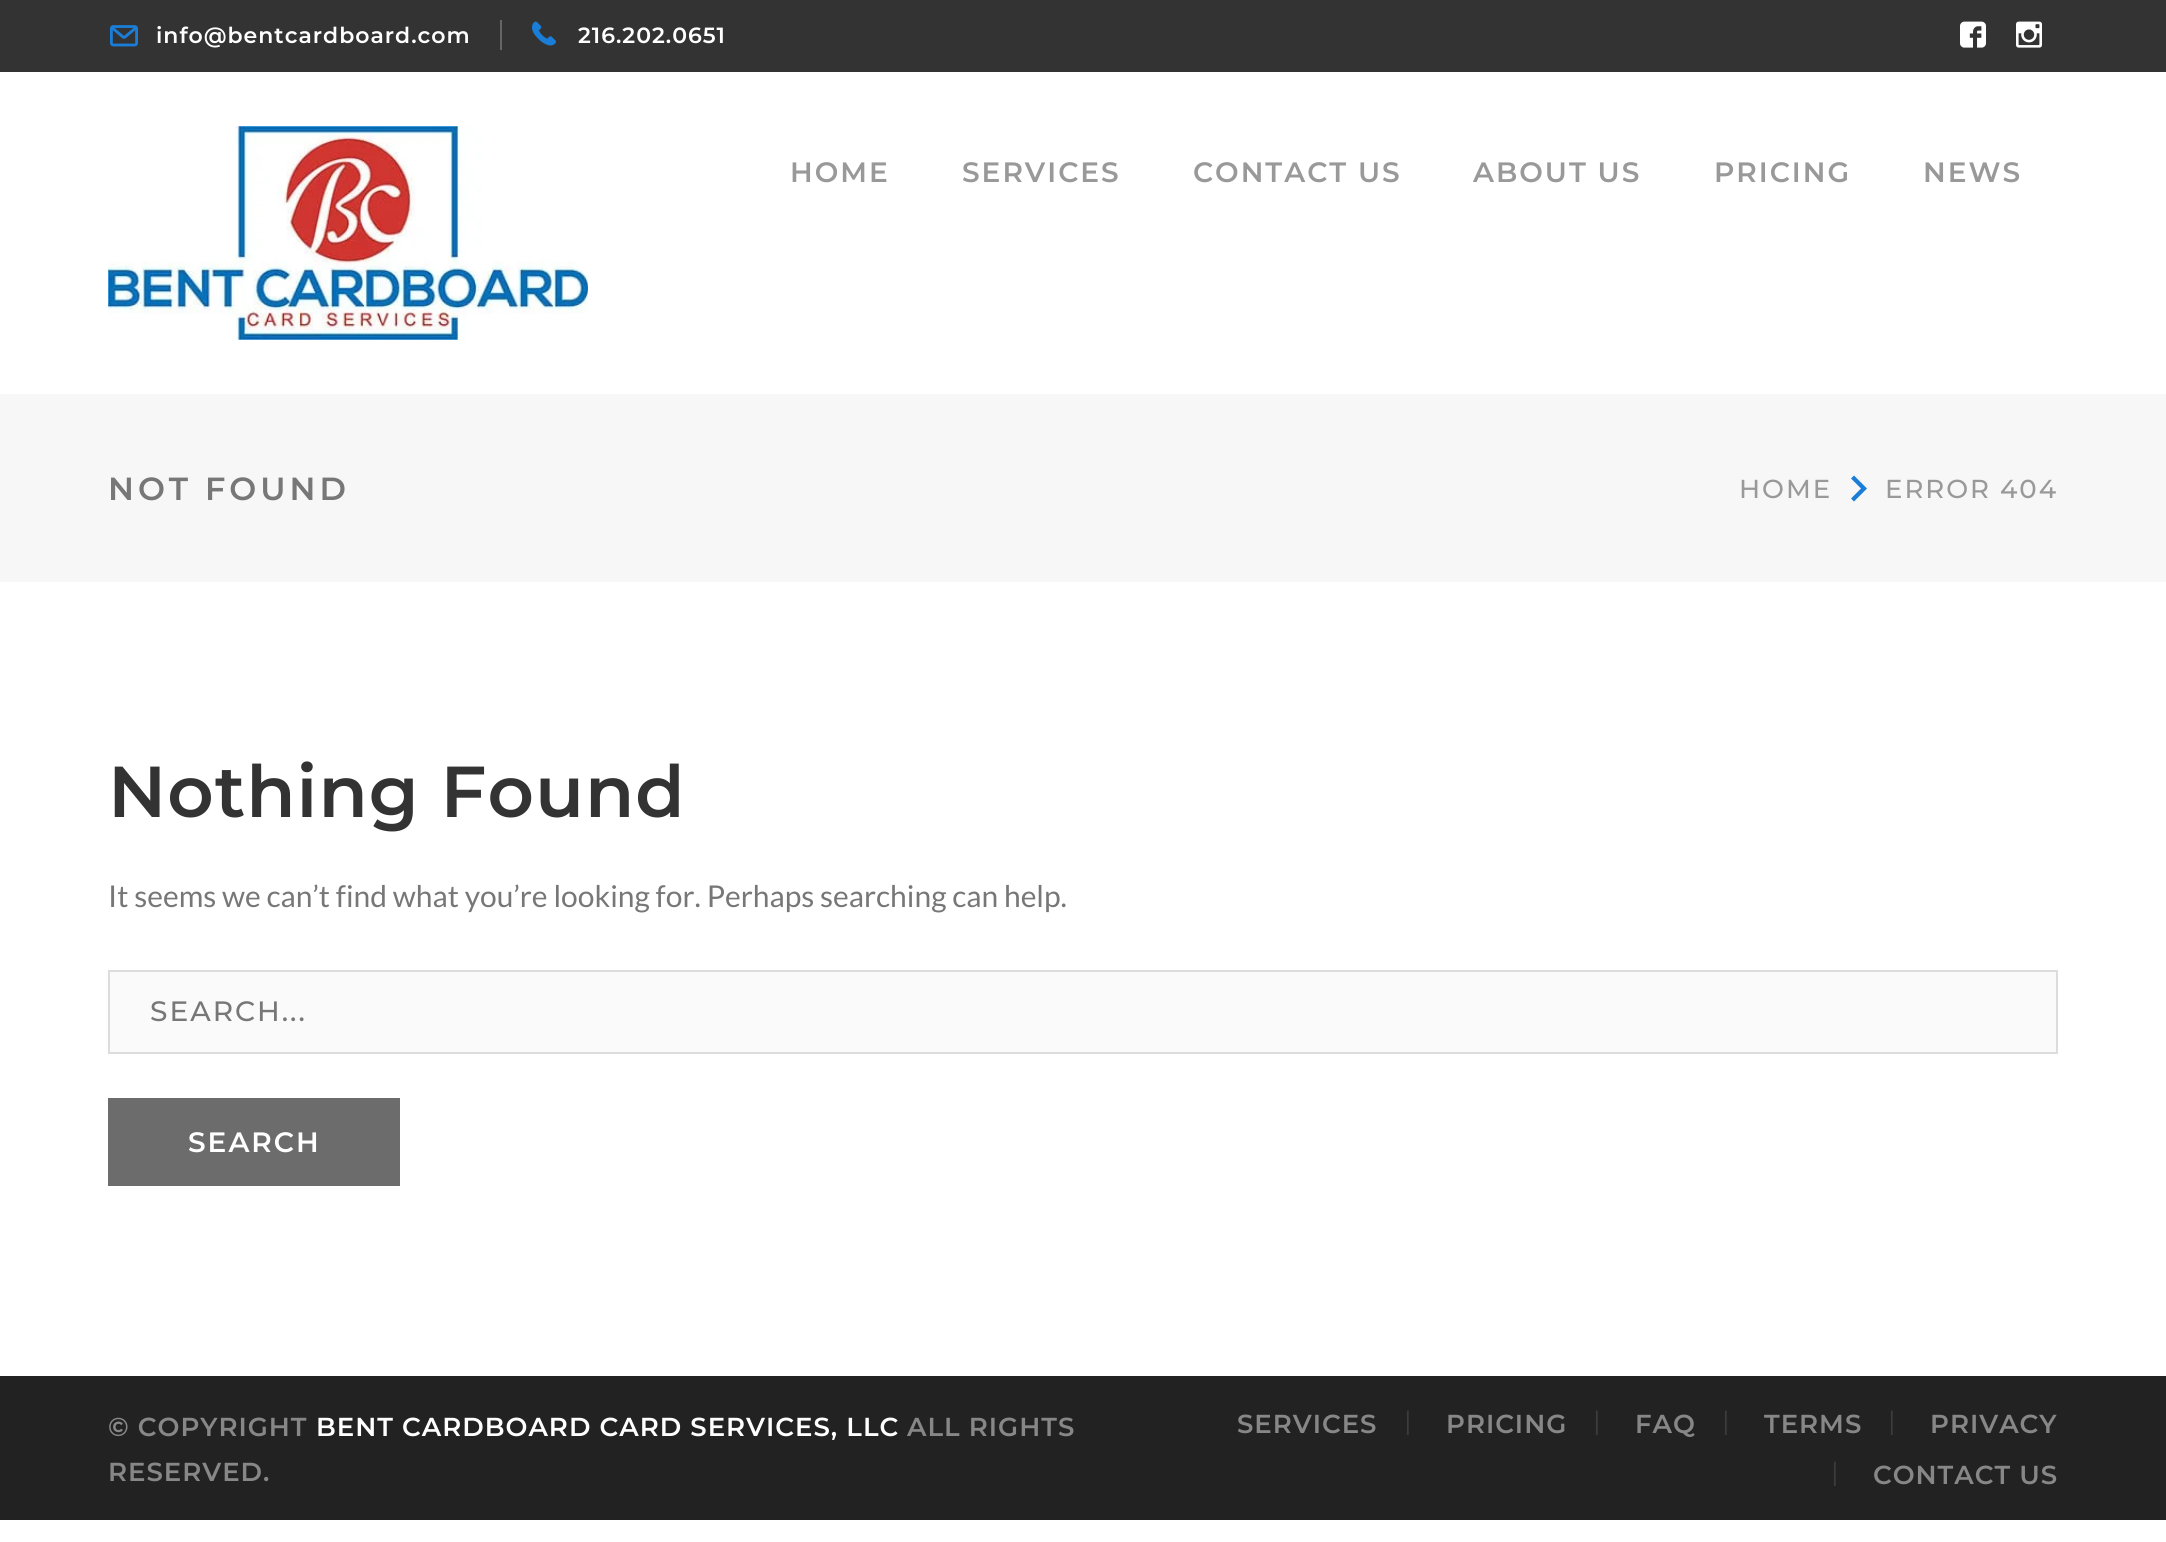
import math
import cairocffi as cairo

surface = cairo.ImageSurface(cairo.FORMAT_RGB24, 2166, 1542)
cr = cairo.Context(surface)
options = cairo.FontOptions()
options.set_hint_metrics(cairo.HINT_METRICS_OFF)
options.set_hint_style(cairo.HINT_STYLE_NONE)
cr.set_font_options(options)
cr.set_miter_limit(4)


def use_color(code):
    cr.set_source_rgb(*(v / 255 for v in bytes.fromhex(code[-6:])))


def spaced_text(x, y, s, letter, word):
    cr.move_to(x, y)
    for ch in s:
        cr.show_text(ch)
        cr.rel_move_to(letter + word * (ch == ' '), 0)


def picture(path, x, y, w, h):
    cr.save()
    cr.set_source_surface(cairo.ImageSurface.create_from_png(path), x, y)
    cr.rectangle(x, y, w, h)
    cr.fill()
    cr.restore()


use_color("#ffffff")
cr.paint()
use_color("#333333")
cr.rectangle(0, 0, 2166, 72)
cr.fill()
picture("img1.png", 110, 25, 28, 22)
cr.select_font_face("Montserrat SemiBold")
cr.set_font_size(22)
use_color("#ffffff")
spaced_text(156, 43, "info@bentcardboard.com", 1, 0)
use_color("#666666")
cr.rectangle(500, 20, 2, 30)
cr.fill()
picture("img2.png", 532, 21, 24, 25)
use_color("#ffffff")
spaced_text(578, 43, "216.202.0651", 1, 0)
picture("img3.png", 1960, 21, 26, 27)
picture("img4.png", 2016, 21, 26, 27)
picture("img5.png", 108, 126, 480, 214)
cr.set_font_size(28)
use_color("#999999")
spaced_text(790, 182, "HOME", 2, 0)
spaced_text(962, 182, "SERVICES", 2, 0)
spaced_text(1193, 182, "CONTACT US", 2, 0)
spaced_text(1473, 182, "ABOUT US", 2, 0)
spaced_text(1714, 182, "PRICING", 2, 0)
spaced_text(1923, 182, "NEWS", 2, 0)
use_color("#f7f7f7")
cr.rectangle(0, 394, 2166, 188)
cr.fill()
cr.set_font_size(32)
use_color("#777777")
spaced_text(108, 500, "NOT FOUND", 4, 0)
cr.select_font_face("Montserrat Medium")
cr.set_font_size(26)
use_color("#999999")
spaced_text(1739, 498, "HOME", 2, 0)
use_color("#1a7dd7")
cr.new_path()
cr.move_to(1854, 475.5)
cr.line_to(1851, 478.5)
cr.line_to(1861, 488.5)
cr.line_to(1851, 498.5)
cr.line_to(1854, 501.5)
cr.line_to(1867, 488.5)
cr.close_path()
cr.fill()
use_color("#999999")
spaced_text(1885, 498, "ERROR 404", 2, 0)
cr.select_font_face("Montserrat SemiBold")
cr.set_font_size(72)
use_color("#333333")
spaced_text(108, 817, "Nothing Found", 1, 0)
cr.select_font_face("Lato")
cr.set_font_size(30)
use_color("#777777")
cr.move_to(108, 907)
cr.show_text("It seems we can’t find what you’re looking for. Perhaps searching can help.")
use_color("#fafafa")
cr.rectangle(109, 971, 1948, 82)
cr.fill_preserve()
use_color("#dcdcdc")
cr.stroke()
cr.select_font_face("Montserrat Medium")
cr.set_font_size(28)
use_color("#777777")
spaced_text(150, 1021, "SEARCH...", 2, 0)
use_color("#6c6c6c")
cr.rectangle(108, 1098, 292, 88)
cr.fill()
cr.select_font_face("Montserrat SemiBold")
use_color("#ffffff")
spaced_text(188, 1152, "SEARCH", 2, 0)
use_color("#222222")
cr.rectangle(0, 1376, 2166, 144)
cr.fill()
cr.set_font_size(26)
use_color("#878787")
spaced_text(108, 1436, "© COPYRIGHT", 1, 0)
use_color("#ffffff")
spaced_text(316, 1436, "BENT CARDBOARD CARD SERVICES, LLC", 1, 0)
use_color("#878787")
spaced_text(907, 1436, "ALL RIGHTS", 1, 0)
spaced_text(108, 1481, "RESERVED.", 1, 0)
spaced_text(1237, 1433, "SERVICES", 1, 0)
cr.select_font_face("Montserrat")
use_color("#3c3c3c")
spaced_text(1404, 1430, "|", 1, 0)
cr.select_font_face("Montserrat SemiBold")
use_color("#878787")
spaced_text(1446, 1433, "PRICING", 1, 0)
cr.select_font_face("Montserrat")
use_color("#3c3c3c")
spaced_text(1593, 1430, "|", 1, 0)
cr.select_font_face("Montserrat SemiBold")
use_color("#878787")
spaced_text(1635, 1433, "FAQ", 1, 0)
cr.select_font_face("Montserrat")
use_color("#3c3c3c")
spaced_text(1722, 1430, "|", 1, 0)
cr.select_font_face("Montserrat SemiBold")
use_color("#878787")
spaced_text(1764, 1433, "TERMS", 1, 0)
cr.select_font_face("Montserrat")
use_color("#3c3c3c")
spaced_text(1888, 1430, "|", 1, 0)
cr.select_font_face("Montserrat SemiBold")
use_color("#878787")
spaced_text(1930, 1433, "PRIVACY", 1, 0)
cr.select_font_face("Montserrat")
use_color("#3c3c3c")
spaced_text(1831, 1481, "|", 1, 0)
cr.select_font_face("Montserrat SemiBold")
use_color("#878787")
spaced_text(1873, 1484, "CONTACT US", 1, 0)
surface.write_to_png("result.png")
